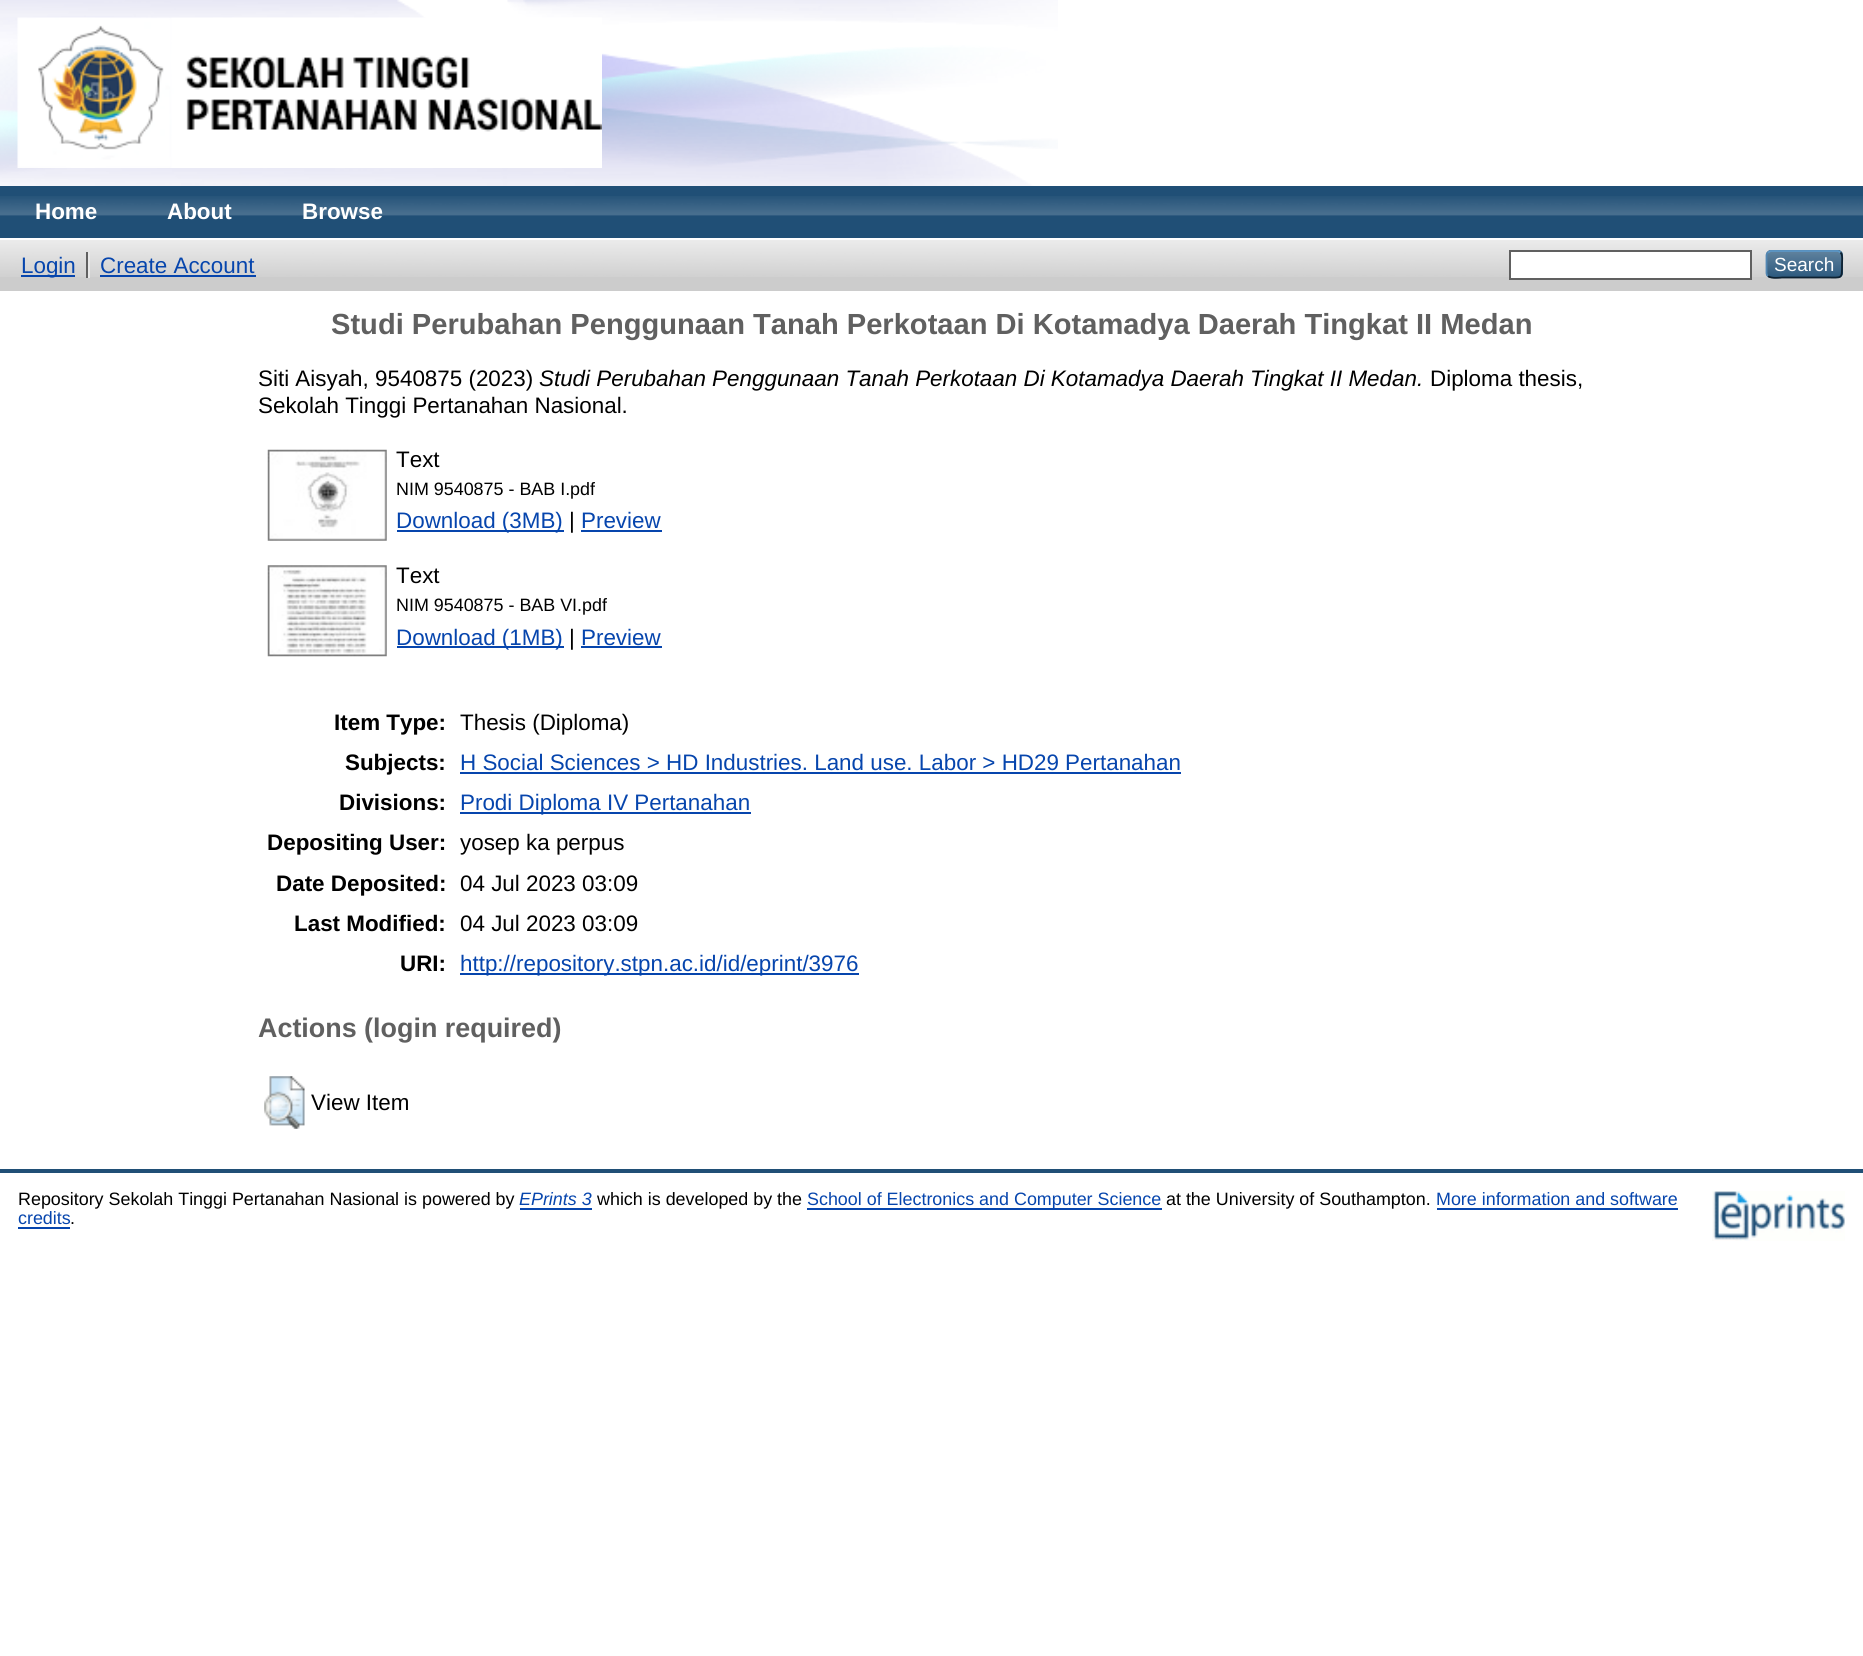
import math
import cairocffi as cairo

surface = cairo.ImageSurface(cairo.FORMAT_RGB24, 1863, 1656)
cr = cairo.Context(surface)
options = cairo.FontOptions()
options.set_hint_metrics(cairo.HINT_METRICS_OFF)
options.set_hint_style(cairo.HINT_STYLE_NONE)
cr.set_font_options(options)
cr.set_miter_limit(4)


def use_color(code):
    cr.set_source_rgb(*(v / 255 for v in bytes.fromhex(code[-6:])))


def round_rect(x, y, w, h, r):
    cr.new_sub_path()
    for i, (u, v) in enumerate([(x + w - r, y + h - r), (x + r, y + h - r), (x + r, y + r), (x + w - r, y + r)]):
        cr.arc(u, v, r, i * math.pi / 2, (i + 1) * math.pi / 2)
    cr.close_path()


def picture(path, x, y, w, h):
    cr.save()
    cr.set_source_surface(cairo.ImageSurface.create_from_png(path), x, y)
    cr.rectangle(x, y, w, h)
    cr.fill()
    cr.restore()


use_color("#ffffff")
cr.paint()
picture("img1.png", 0, 0, 1058, 186)
picture("img2.png", 17, 17, 585, 151)
use_color("#204f76")
cr.rectangle(0, 186, 1863, 52)
cr.fill()
picture("img3.png", 0, 196, 1863, 20)
cr.select_font_face("Liberation Sans", cairo.FONT_SLANT_NORMAL, cairo.FONT_WEIGHT_BOLD)
cr.set_font_size(22.4)
use_color("#ffffff")
cr.move_to(35, 219)
cr.show_text("Home")
cr.move_to(167, 219)
cr.show_text("About")
cr.move_to(302, 219)
cr.show_text("Browse")
use_color("#cccccc")
cr.rectangle(0, 240, 1863, 51)
cr.fill()
picture("img4.png", 0, 240, 1863, 37)
use_color("#0645ad")
cr.rectangle(21, 275, 54, 2)
cr.fill()
cr.select_font_face("Liberation Sans")
cr.move_to(21, 273)
cr.show_text("Login")
use_color("#606060")
cr.rectangle(86, 252, 2, 26)
cr.fill()
use_color("#0645ad")
cr.move_to(100, 273)
cr.show_text("Create Account")
use_color("#e8e8e8")
cr.rectangle(88, 252, 2, 26)
cr.fill()
use_color("#0645ad")
cr.rectangle(100, 275, 156, 2)
cr.fill()
use_color("#ffffff")
cr.rectangle(1510, 251, 241, 28)
cr.fill_preserve()
use_color("#606060")
cr.stroke()
use_color("#1f4f76")
round_rect(1766, 250, 77, 28, 5)
cr.fill()
picture("img5.png", 1766, 250, 77, 28)
cr.new_path()
cr.move_to(1768, 252.5)
cr.line_to(1770.5, 251)
cr.line_to(1838, 251)
cr.line_to(1840.5, 252.5)
use_color("#5b97c7")
cr.set_line_width(1.8)
cr.stroke()
cr.new_path()
cr.move_to(1840.5, 252.5)
cr.curve_to(1843, 255, 1842, 261, 1842, 264)
cr.curve_to(1842, 279.5, 1842.5, 277.5, 1826.5, 277.5)
cr.line_to(1782, 277.5)
cr.curve_to(1781.5, 277.5, 1771, 279, 1768, 276)
use_color("#0d2131")
cr.stroke()
cr.new_path()
cr.move_to(1768, 276)
cr.curve_to(1767, 275.5, 1766.5, 274, 1766.5, 273)
cr.line_to(1766.5, 255.5)
cr.curve_to(1766.5, 254.5, 1767, 253, 1768, 252.5)
use_color("#5287b3")
cr.stroke()
cr.set_font_size(19)
use_color("#ffffff")
cr.move_to(1774, 271)
cr.show_text("Search")
cr.select_font_face("Liberation Sans", cairo.FONT_SLANT_NORMAL, cairo.FONT_WEIGHT_BOLD)
cr.set_font_size(29.1)
use_color("#606060")
cr.move_to(331, 334)
cr.show_text("Studi Perubahan Penggunaan Tanah Perkotaan Di Kotamadya Daerah Tingkat II Medan")
cr.select_font_face("Liberation Sans")
cr.set_font_size(22.4)
use_color("#000000")
cr.move_to(258, 386)
cr.show_text("Siti Aisyah, 9540875 (2023)")
cr.select_font_face("Liberation Sans", cairo.FONT_SLANT_ITALIC)
cr.move_to(539, 386)
cr.show_text("Studi Perubahan Penggunaan Tanah Perkotaan Di Kotamadya Daerah Tingkat II Medan.")
cr.select_font_face("Liberation Sans")
cr.move_to(1430, 386)
cr.show_text("Diploma thesis,")
cr.move_to(258, 413)
cr.show_text("Sekolah Tinggi Pertanahan Nasional.")
picture("img6.png", 267, 449, 120, 92)
cr.move_to(396, 467)
cr.show_text("Text")
cr.set_font_size(17.9)
cr.move_to(396, 495)
cr.show_text("NIM 9540875 - BAB I.pdf")
use_color("#0645ad")
cr.rectangle(397, 530, 167, 2)
cr.fill()
cr.set_font_size(22.4)
cr.move_to(396, 528)
cr.show_text("Download (3MB)")
use_color("#000000")
cr.move_to(569, 528)
cr.show_text("|")
use_color("#0645ad")
cr.move_to(581, 528)
cr.show_text("Preview")
cr.rectangle(581, 530, 81, 2)
cr.fill()
picture("img7.png", 267, 565, 120, 92)
use_color("#000000")
cr.move_to(396, 583)
cr.show_text("Text")
cr.set_font_size(17.9)
cr.move_to(396, 611)
cr.show_text("NIM 9540875 - BAB VI.pdf")
use_color("#0645ad")
cr.rectangle(397, 646, 167, 2)
cr.fill()
cr.set_font_size(22.4)
cr.move_to(396, 645)
cr.show_text("Download (1MB)")
use_color("#000000")
cr.move_to(569, 645)
cr.show_text("|")
use_color("#0645ad")
cr.move_to(581, 645)
cr.show_text("Preview")
cr.rectangle(581, 646, 81, 2)
cr.fill()
cr.select_font_face("Liberation Sans", cairo.FONT_SLANT_NORMAL, cairo.FONT_WEIGHT_BOLD)
use_color("#000000")
cr.move_to(334, 730)
cr.show_text("Item Type:")
cr.select_font_face("Liberation Sans")
cr.move_to(460, 730)
cr.show_text("Thesis (Diploma)")
cr.select_font_face("Liberation Sans", cairo.FONT_SLANT_NORMAL, cairo.FONT_WEIGHT_BOLD)
cr.move_to(345, 770)
cr.show_text("Subjects:")
cr.select_font_face("Liberation Sans")
use_color("#0645ad")
cr.move_to(460, 770)
cr.show_text("H Social Sciences > HD Industries. Land use. Labor > HD29 Pertanahan")
cr.rectangle(460, 772, 721, 2)
cr.fill()
cr.select_font_face("Liberation Sans", cairo.FONT_SLANT_NORMAL, cairo.FONT_WEIGHT_BOLD)
use_color("#000000")
cr.move_to(339, 810)
cr.show_text("Divisions:")
use_color("#0645ad")
cr.rectangle(460, 812, 291, 2)
cr.fill()
cr.select_font_face("Liberation Sans")
cr.move_to(460, 810)
cr.show_text("Prodi Diploma IV Pertanahan")
cr.select_font_face("Liberation Sans", cairo.FONT_SLANT_NORMAL, cairo.FONT_WEIGHT_BOLD)
use_color("#000000")
cr.move_to(267, 850)
cr.show_text("Depositing User:")
cr.select_font_face("Liberation Sans")
cr.move_to(460, 850)
cr.show_text("yosep ka perpus")
cr.select_font_face("Liberation Sans", cairo.FONT_SLANT_NORMAL, cairo.FONT_WEIGHT_BOLD)
cr.move_to(276, 891)
cr.show_text("Date Deposited:")
cr.select_font_face("Liberation Sans")
cr.move_to(460, 891)
cr.show_text("04 Jul 2023 03:09")
cr.select_font_face("Liberation Sans", cairo.FONT_SLANT_NORMAL, cairo.FONT_WEIGHT_BOLD)
cr.move_to(294, 931)
cr.show_text("Last Modified:")
cr.select_font_face("Liberation Sans")
cr.move_to(460, 931)
cr.show_text("04 Jul 2023 03:09")
cr.select_font_face("Liberation Sans", cairo.FONT_SLANT_NORMAL, cairo.FONT_WEIGHT_BOLD)
cr.move_to(400, 971)
cr.show_text("URI:")
use_color("#0645ad")
cr.rectangle(460, 973, 399, 2)
cr.fill()
cr.select_font_face("Liberation Sans")
cr.move_to(460, 971)
cr.show_text("http://repository.stpn.ac.id/id/eprint/3976")
cr.select_font_face("Liberation Sans", cairo.FONT_SLANT_NORMAL, cairo.FONT_WEIGHT_BOLD)
cr.set_font_size(26.9)
use_color("#606060")
cr.move_to(258, 1037)
cr.show_text("Actions (login required)")
picture("img8.png", 264, 1076, 41, 53)
cr.select_font_face("Liberation Sans")
cr.set_font_size(22.4)
use_color("#000000")
cr.move_to(311, 1110)
cr.show_text("View Item")
use_color("#204f76")
cr.rectangle(0, 1169, 1863, 4)
cr.fill()
cr.set_font_size(17.9)
use_color("#000000")
cr.move_to(18, 1205)
cr.show_text("Repository Sekolah Tinggi Pertanahan Nasional is powered by")
cr.select_font_face("Liberation Sans", cairo.FONT_SLANT_ITALIC)
use_color("#0645ad")
cr.move_to(519, 1205)
cr.show_text("EPrints 3")
cr.rectangle(520, 1208, 72, 2)
cr.fill()
cr.select_font_face("Liberation Sans")
use_color("#000000")
cr.move_to(597, 1205)
cr.show_text("which is developed by the")
use_color("#0645ad")
cr.rectangle(807, 1208, 355, 2)
cr.fill()
cr.move_to(807, 1205)
cr.show_text("School of Electronics and Computer Science")
use_color("#000000")
cr.move_to(1166, 1205)
cr.show_text("at the University of Southampton.")
use_color("#0645ad")
cr.move_to(1436, 1205)
cr.show_text("More information and software")
cr.rectangle(1437, 1208, 241, 2)
cr.fill()
cr.move_to(18, 1224)
cr.show_text("credits")
cr.rectangle(18, 1227, 52, 2)
cr.fill()
use_color("#000000")
cr.move_to(70, 1224)
cr.show_text(".")
picture("img9.png", 1712, 1191, 133, 50)
surface.write_to_png("result.png")
